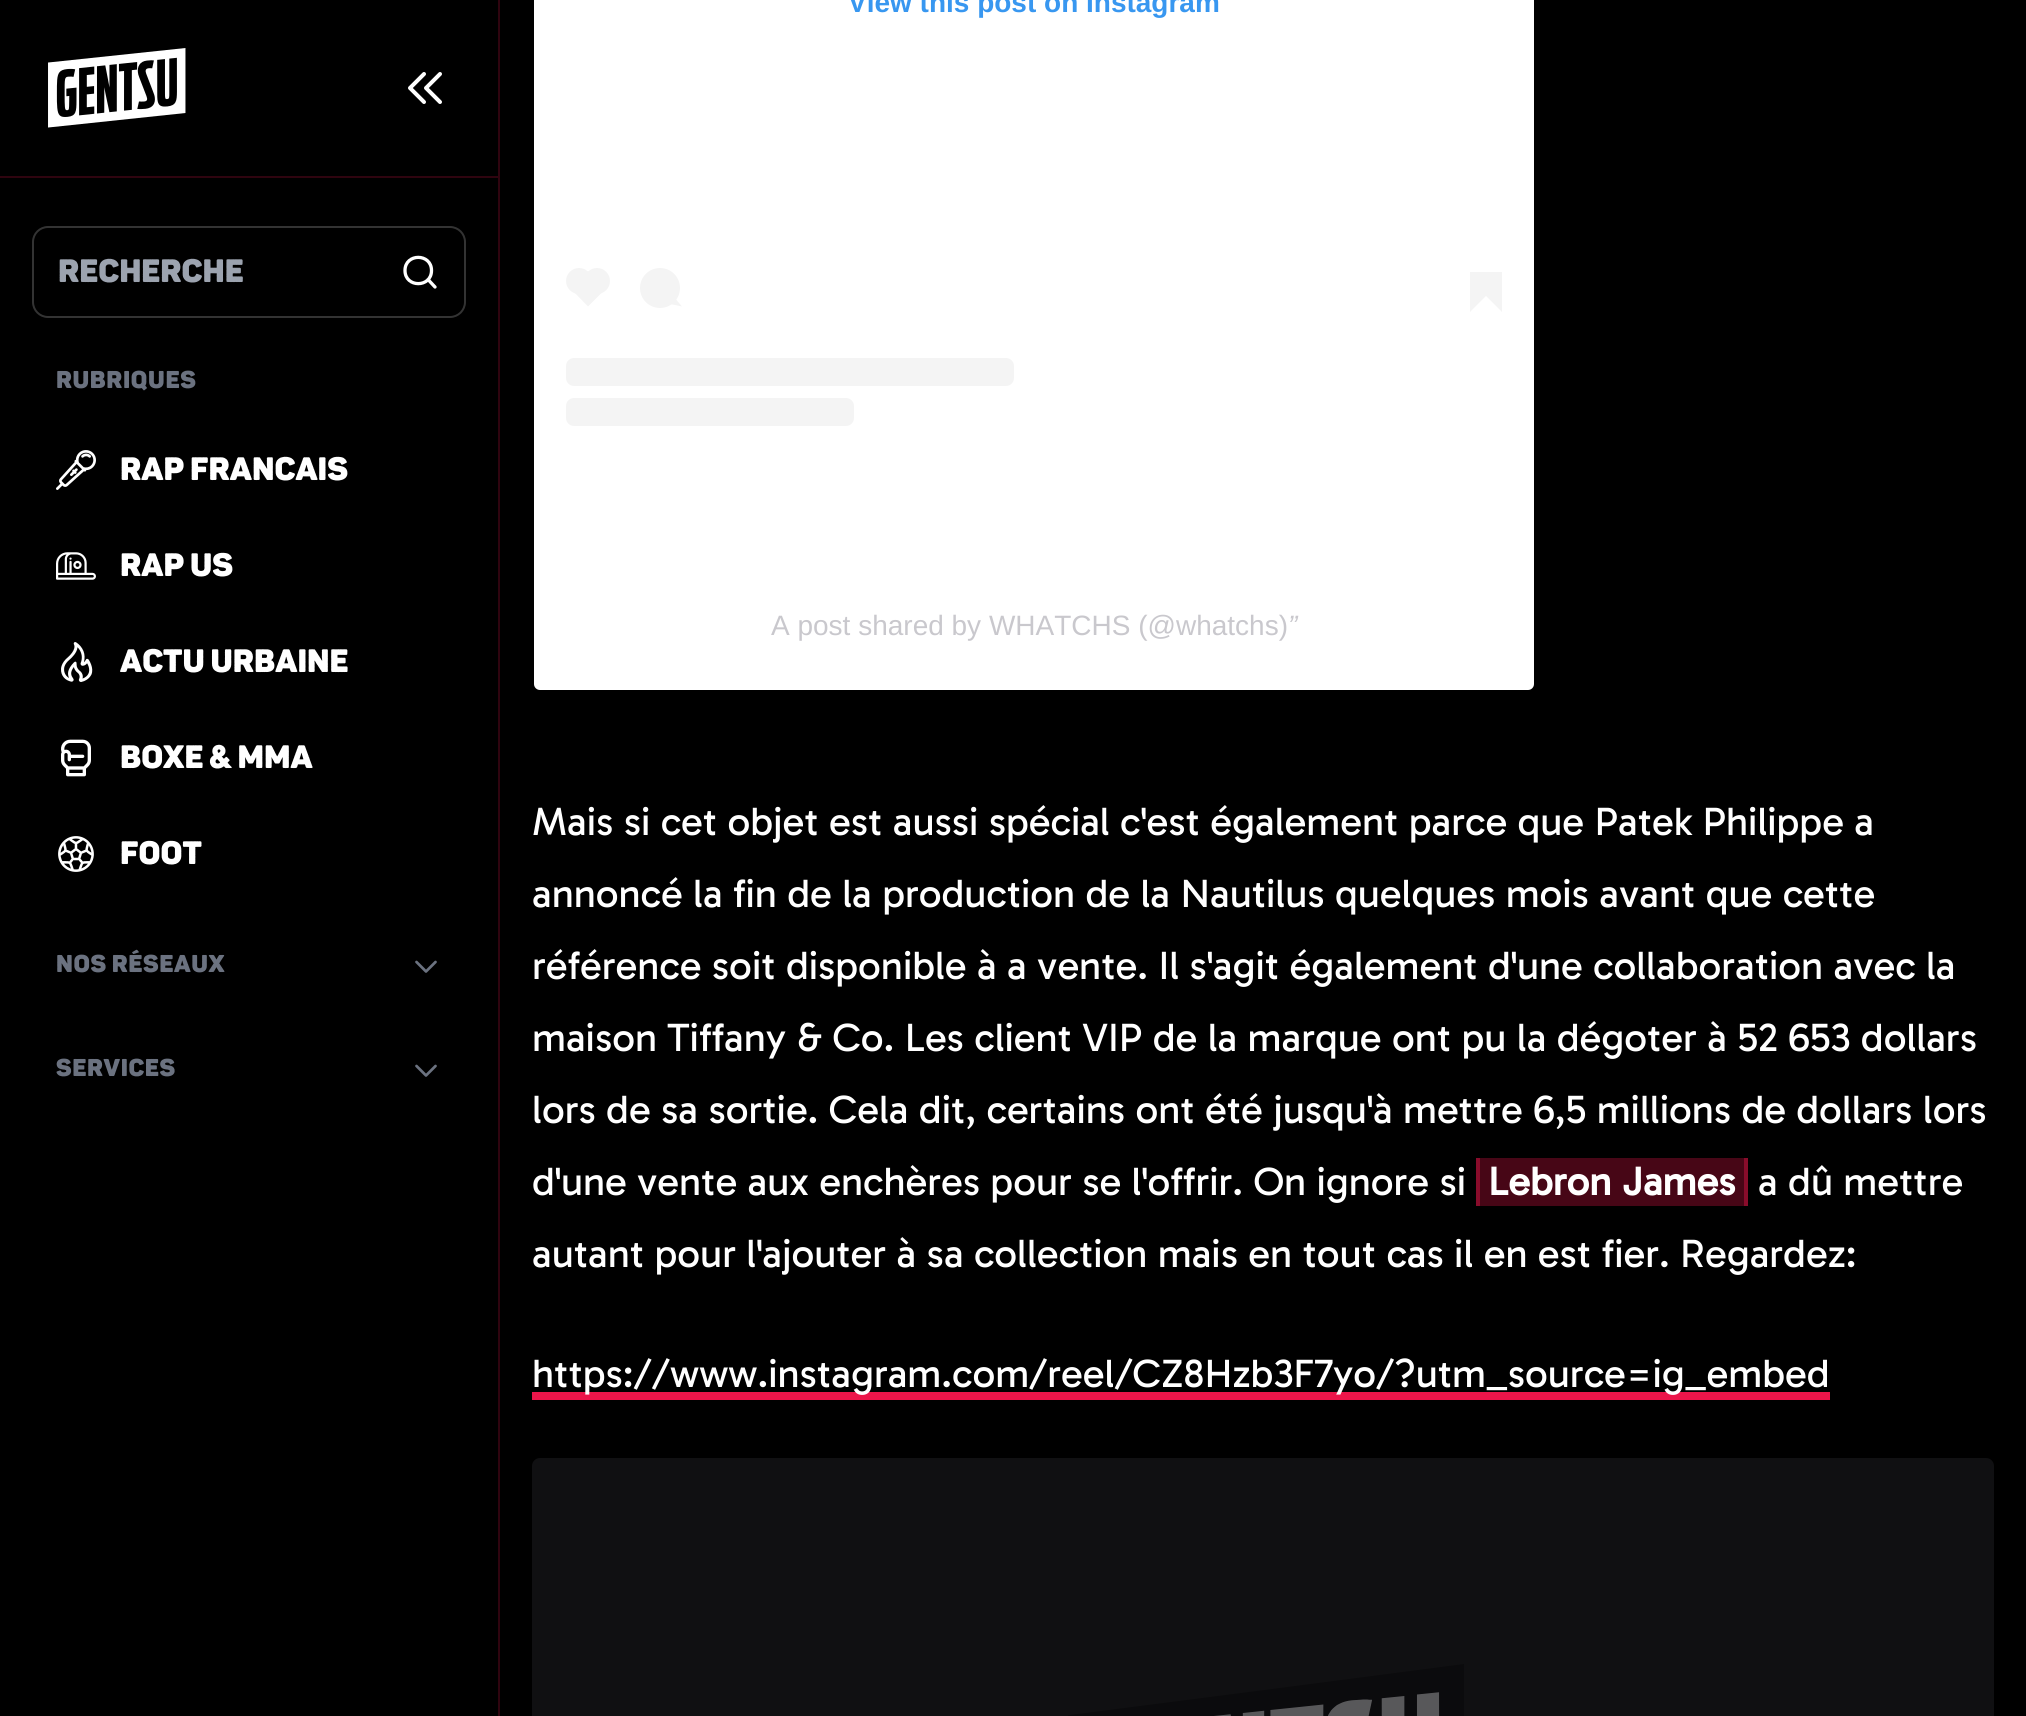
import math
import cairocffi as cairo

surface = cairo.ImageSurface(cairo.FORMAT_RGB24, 2026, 1716)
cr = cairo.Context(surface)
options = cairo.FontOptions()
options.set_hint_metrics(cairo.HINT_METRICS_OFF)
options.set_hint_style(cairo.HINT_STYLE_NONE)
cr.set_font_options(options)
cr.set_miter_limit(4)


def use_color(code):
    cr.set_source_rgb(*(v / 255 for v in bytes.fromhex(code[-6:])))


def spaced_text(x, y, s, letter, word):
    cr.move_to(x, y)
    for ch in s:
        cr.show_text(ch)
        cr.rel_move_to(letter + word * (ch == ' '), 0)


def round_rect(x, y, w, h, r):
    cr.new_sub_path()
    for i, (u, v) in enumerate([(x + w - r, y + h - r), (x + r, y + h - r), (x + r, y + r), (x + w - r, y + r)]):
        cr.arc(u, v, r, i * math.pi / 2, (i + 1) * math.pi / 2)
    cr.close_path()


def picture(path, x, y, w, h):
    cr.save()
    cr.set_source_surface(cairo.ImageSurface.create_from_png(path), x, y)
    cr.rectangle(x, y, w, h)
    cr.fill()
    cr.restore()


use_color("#000000")
cr.paint()
use_color("#2f040f")
cr.rectangle(498, 0, 2, 1716)
cr.fill()
cr.rectangle(0, 176, 498, 2)
cr.fill()
picture("img1.png", 48, 48, 138, 80)
cr.new_path()
cr.move_to(424, 102)
cr.line_to(410, 88)
cr.line_to(424, 74)
cr.move_to(440, 102)
cr.line_to(426, 88)
cr.line_to(440, 74)
use_color("#ffffff")
cr.set_line_width(4)
cr.set_line_cap(cairo.LINE_CAP_ROUND)
cr.set_line_join(cairo.LINE_JOIN_ROUND)
cr.stroke()
round_rect(33, 227, 432, 90, 15)
use_color("#333333")
cr.set_line_width(2)
cr.set_line_cap(cairo.LINE_CAP_BUTT)
cr.set_line_join(cairo.LINE_JOIN_MITER)
cr.stroke()
cr.select_font_face("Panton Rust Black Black")
cr.set_font_size(32)
use_color("#9ca3af")
cr.move_to(58, 282)
cr.show_text("Recherche")
cr.new_path()
cr.move_to(428, 279.5)
cr.line_to(435, 287)
cr.move_to(431.5, 270.5)
cr.curve_to(431.5, 288, 405, 288, 405, 270.5)
cr.curve_to(405, 253, 431.5, 253, 431.5, 270.5)
cr.close_path()
use_color("#ffffff")
cr.set_line_width(3.3)
cr.set_line_cap(cairo.LINE_CAP_ROUND)
cr.set_line_join(cairo.LINE_JOIN_ROUND)
cr.stroke()
cr.set_font_size(24)
use_color("#6b7280")
spaced_text(56, 388, "RUBRIQUES", 0.6, 0)
picture("img2.png", 56, 450, 40, 40)
cr.set_font_size(32)
use_color("#ffffff")
cr.move_to(120, 480)
cr.show_text("Rap Francais")
picture("img3.png", 56, 552, 40, 28)
cr.move_to(120, 576)
cr.show_text("Rap Us")
picture("img4.png", 61, 642, 32, 40)
cr.move_to(120, 672)
cr.show_text("Actu Urbaine")
picture("img5.png", 61, 739, 30, 38)
cr.move_to(120, 768)
cr.show_text("Boxe & MMA")
picture("img6.png", 58, 836, 36, 36)
cr.move_to(120, 864)
cr.show_text("Foot")
cr.set_font_size(24)
use_color("#6b7280")
spaced_text(56, 972, "NOS RÉSEAUX", 0.6, 0)
cr.new_path()
cr.move_to(435.5, 962)
cr.line_to(426, 971.5)
cr.line_to(416.5, 962)
cr.set_line_width(2.7)
cr.stroke()
spaced_text(56, 1076, "SERVICES", 0.6, 0)
cr.new_path()
cr.move_to(435.5, 1066)
cr.line_to(426, 1075.5)
cr.line_to(416.5, 1066)
cr.stroke()
use_color("#ffffff")
round_rect(534, -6, 1000, 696, 6)
cr.fill()
cr.select_font_face("Liberation Sans", cairo.FONT_SLANT_NORMAL, cairo.FONT_WEIGHT_BOLD)
cr.set_font_size(28)
use_color("#3897f0")
cr.move_to(848, 12)
cr.show_text("View this post on Instagram")
use_color("#f4f4f4")
cr.new_path()
cr.arc(579, 281, 13, 0, 2 * math.pi)
cr.fill()
cr.new_path()
cr.move_to(570.5, 288.5)
cr.line_to(588, 271)
cr.line_to(606, 288.5)
cr.line_to(588, 306.5)
cr.close_path()
cr.fill()
cr.arc(597, 281, 13, 0, 2 * math.pi)
cr.fill()
cr.arc(660, 288, 20, 0, 2 * math.pi)
cr.fill()
cr.new_path()
cr.move_to(670, 304)
cr.line_to(674, 297)
cr.line_to(682, 306.5)
cr.close_path()
cr.fill()
cr.rectangle(1470, 272, 32, 24)
cr.fill()
cr.new_path()
cr.move_to(1470, 296)
cr.line_to(1486, 296)
cr.line_to(1470, 312)
cr.close_path()
cr.fill()
cr.new_path()
cr.move_to(1486, 296)
cr.line_to(1502, 296)
cr.line_to(1502, 312)
cr.close_path()
cr.fill()
round_rect(566, 358, 448, 28, 8)
cr.fill()
round_rect(566, 398, 288, 28, 8)
cr.fill()
cr.select_font_face("Liberation Sans")
use_color("#c9c8cd")
cr.move_to(771, 635)
cr.show_text("A post shared by WHATCHS (@whatchs)")
cr.select_font_face("Liberation Sans", cairo.FONT_SLANT_ITALIC)
cr.move_to(1288, 635)
cr.show_text("”")
cr.select_font_face("Gabarito")
cr.set_font_size(40)
use_color("#ffffff")
cr.move_to(532, 835)
cr.show_text("Mais si cet objet est aussi spécial c'est également parce que Patek Philippe a")
cr.move_to(532, 907)
cr.show_text("annoncé la fin de la production de la Nautilus quelques mois avant que cette")
cr.move_to(532, 979)
cr.show_text("référence soit disponible à a vente. Il s'agit également d'une collaboration avec la")
cr.move_to(532, 1051)
cr.show_text("maison Tiffany & Co. Les client VIP de la marque ont pu la dégoter à 52 653 dollars")
cr.move_to(532, 1123)
cr.show_text("lors de sa sortie. Cela dit, certains ont été jusqu'à mettre 6,5 millions de dollars lors")
cr.move_to(532, 1195)
cr.show_text("d'une vente aux enchères pour se l'offrir. On ignore si")
use_color("#470616")
cr.rectangle(1480, 1158, 264, 48)
cr.fill()
cr.select_font_face("Gabarito", cairo.FONT_SLANT_NORMAL, cairo.FONT_WEIGHT_BOLD)
use_color("#ffffff")
cr.move_to(1488, 1195)
cr.show_text("Lebron James")
use_color("#890c2b")
cr.rectangle(1744, 1158, 4, 48)
cr.fill()
cr.rectangle(1476, 1158, 4, 48)
cr.fill()
cr.select_font_face("Gabarito")
use_color("#ffffff")
cr.move_to(1758, 1195)
cr.show_text("a dû mettre")
cr.move_to(532, 1267)
cr.show_text("autant pour l'ajouter à sa collection mais en tout cas il en est fier. Regardez:")
use_color("#ec154a")
cr.rectangle(532, 1392, 1298, 8)
cr.fill()
use_color("#ffffff")
cr.move_to(532, 1387)
cr.show_text("https://www.instagram.com/reel/CZ8Hzb3F7yo/?utm_source=ig_embed")
use_color("#101012")
round_rect(532, 1458, 1462, 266, 8)
cr.fill()
picture("img7.png", 1068, 1664, 396, 52)
surface.write_to_png("result.png")
